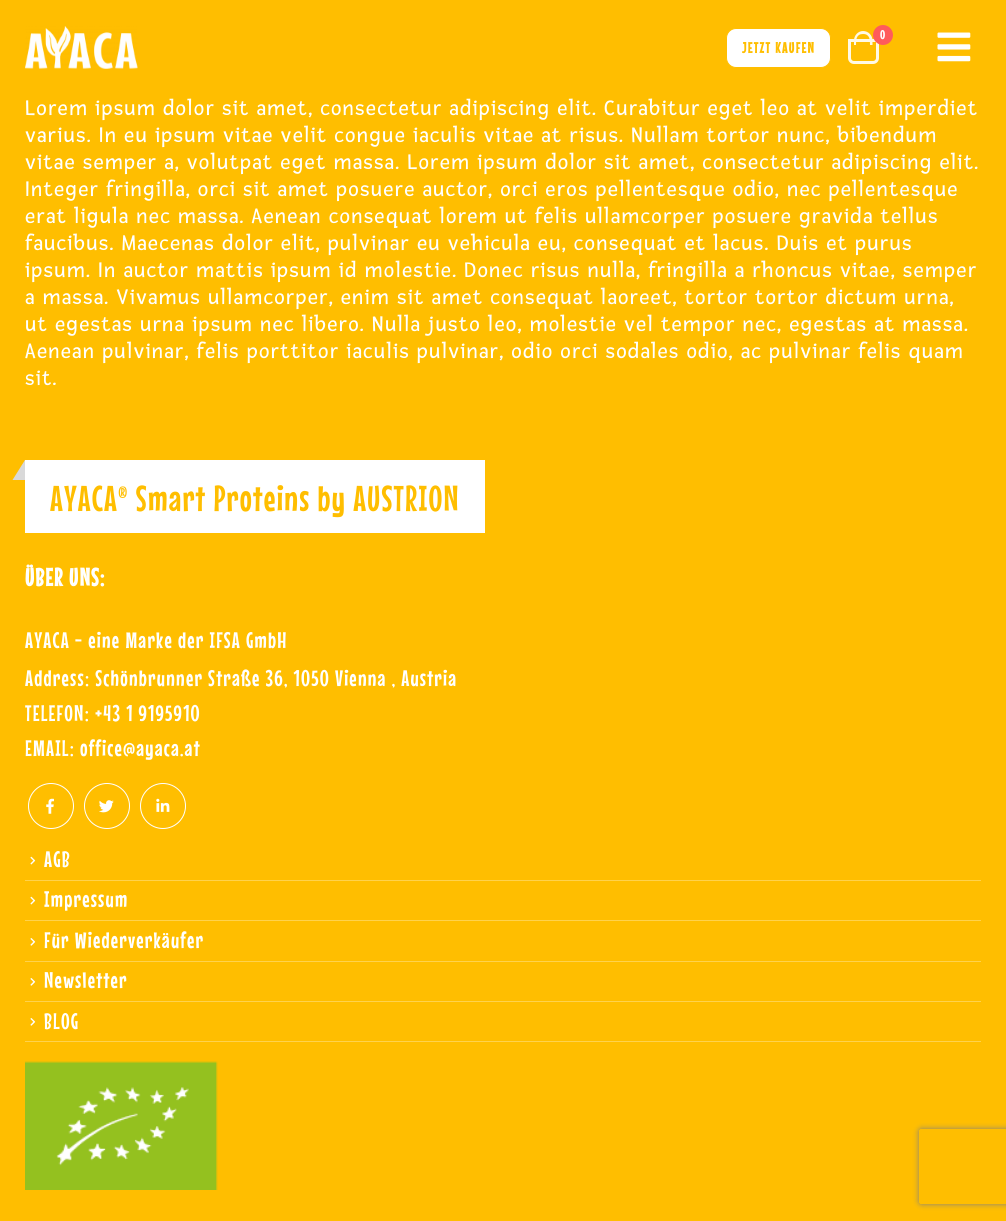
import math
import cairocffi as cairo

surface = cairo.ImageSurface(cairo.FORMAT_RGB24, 1006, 1221)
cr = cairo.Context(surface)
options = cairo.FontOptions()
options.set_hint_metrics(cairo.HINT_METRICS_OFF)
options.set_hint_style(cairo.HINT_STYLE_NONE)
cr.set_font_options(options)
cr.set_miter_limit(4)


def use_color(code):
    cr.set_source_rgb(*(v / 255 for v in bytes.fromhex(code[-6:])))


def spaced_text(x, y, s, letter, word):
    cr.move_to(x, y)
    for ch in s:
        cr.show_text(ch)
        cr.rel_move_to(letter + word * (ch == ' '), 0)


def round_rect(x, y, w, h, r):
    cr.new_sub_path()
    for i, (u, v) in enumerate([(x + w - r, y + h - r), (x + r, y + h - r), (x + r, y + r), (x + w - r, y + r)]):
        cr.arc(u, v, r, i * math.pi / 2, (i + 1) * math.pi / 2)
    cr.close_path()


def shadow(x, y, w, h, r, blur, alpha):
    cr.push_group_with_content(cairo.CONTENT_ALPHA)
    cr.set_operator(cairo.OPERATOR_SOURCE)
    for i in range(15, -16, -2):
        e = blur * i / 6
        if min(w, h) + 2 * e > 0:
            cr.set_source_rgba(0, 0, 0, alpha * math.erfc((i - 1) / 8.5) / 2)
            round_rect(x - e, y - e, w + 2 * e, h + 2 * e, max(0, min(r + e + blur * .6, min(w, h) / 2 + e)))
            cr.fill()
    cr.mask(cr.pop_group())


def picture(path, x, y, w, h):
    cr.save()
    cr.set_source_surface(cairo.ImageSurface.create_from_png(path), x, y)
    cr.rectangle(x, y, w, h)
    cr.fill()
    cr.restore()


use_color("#ffbe00")
cr.paint()
picture("img1.png", 25, 26, 113, 43)
use_color("#ffffff")
round_rect(726.5, 28.5, 104, 39, 9.5)
cr.fill_preserve()
use_color("#ffbe00")
cr.set_line_width(1)
cr.stroke()
cr.select_font_face("Mouse Memoirs", cairo.FONT_SLANT_NORMAL, cairo.FONT_WEIGHT_BOLD)
cr.set_font_size(15)
spaced_text(742, 53, "JETZT KAUFEN", 1.5, 0)
cr.new_path()
cr.move_to(849.5, 40.5)
cr.line_to(877.5, 40.5)
cr.line_to(877.5, 58)
cr.curve_to(877.5, 60.5, 875.5, 62.5, 873, 62.5)
cr.line_to(854, 62.5)
cr.curve_to(851.5, 62.5, 849.5, 60.5, 849.5, 58)
cr.close_path()
use_color("#fff9e6")
cr.set_line_width(3)
cr.stroke()
cr.set_fill_rule(cairo.FILL_RULE_EVEN_ODD)
cr.new_path()
cr.move_to(863, 31)
cr.curve_to(868.5, 31, 872.5, 35.5, 872.5, 40.5)
cr.line_to(872.5, 45)
cr.line_to(854, 45)
cr.line_to(854, 40.5)
cr.curve_to(854, 35.5, 858, 31, 863, 31)
cr.close_path()
cr.move_to(863, 34)
cr.curve_to(870, 34, 870, 40, 870, 45)
cr.line_to(856, 45)
cr.curve_to(856, 40, 856, 34, 863, 34)
cr.close_path()
cr.fill()
use_color("#ff5b5b")
cr.arc(883, 35, 10, 0, 2 * math.pi)
cr.fill()
cr.set_font_size(12)
use_color("#ffffff")
spaced_text(880, 39, "0", 1.25, 0)
picture("img2.png", 937, 32, 34, 30)
cr.select_font_face("Fresca")
cr.set_font_size(22.5)
spaced_text(25, 115, "Lorem ipsum dolor sit amet, consectetur adipiscing elit. Curabitur eget leo at velit imperdiet", 1.25, 0)
spaced_text(25, 142, "varius. In eu ipsum vitae velit congue iaculis vitae at risus. Nullam tortor nunc, bibendum", 1.25, 0)
spaced_text(25, 169, "vitae semper a, volutpat eget massa. Lorem ipsum dolor sit amet, consectetur adipiscing elit.", 1.25, 0)
spaced_text(25, 196, "Integer fringilla, orci sit amet posuere auctor, orci eros pellentesque odio, nec pellentesque", 1.25, 0)
spaced_text(25, 223, "erat ligula nec massa. Aenean consequat lorem ut felis ullamcorper posuere gravida tellus", 1.25, 0)
spaced_text(25, 250, "faucibus. Maecenas dolor elit, pulvinar eu vehicula eu, consequat et lacus. Duis et purus", 1.25, 0)
spaced_text(25, 277, "ipsum. In auctor mattis ipsum id molestie. Donec risus nulla, fringilla a rhoncus vitae, semper", 1.25, 0)
spaced_text(25, 304, "a massa. Vivamus ullamcorper, enim sit amet consequat laoreet, tortor tortor dictum urna,", 1.25, 0)
spaced_text(25, 331, "ut egestas urna ipsum nec libero. Nulla justo leo, molestie vel tempor nec, egestas at massa.", 1.25, 0)
spaced_text(25, 358, "Aenean pulvinar, felis porttitor iaculis pulvinar, odio orci sodales odio, ac pulvinar felis quam", 1.25, 0)
spaced_text(25, 385, "sit.", 1.25, 0)
cr.rectangle(25, 460, 460, 73)
cr.fill()
use_color("#d9d9d9")
cr.set_fill_rule(cairo.FILL_RULE_WINDING)
cr.new_path()
cr.move_to(25, 460)
cr.line_to(25, 480)
cr.line_to(12.5, 480)
cr.close_path()
cr.fill()
cr.select_font_face("Mouse Memoirs")
cr.set_font_size(36)
use_color("#ffbe00")
spaced_text(50, 511, "AYACA® Smart Proteins by AUSTRION", 1.25, 0)
cr.select_font_face("Mouse Memoirs", cairo.FONT_SLANT_NORMAL, cairo.FONT_WEIGHT_BOLD)
cr.set_font_size(25)
use_color("#ffffff")
spaced_text(25, 586, "ÜBER UNS:", 1.25, 0)
cr.select_font_face("Mouse Memoirs")
cr.set_font_size(22.5)
spaced_text(25, 648, "AYACA - eine Marke der IFSA GmbH", 1.25, 0)
spaced_text(25, 686, "Address: Schönbrunner Straße 36, 1050 Vienna , Austria", 1.25, 0)
spaced_text(25, 721, "TELEFON: +43 1 9195910", 1.25, 0)
spaced_text(25, 756, "EMAIL: office@ayaca.at", 1.25, 0)
cr.new_path()
cr.arc(51, 806, 22.5, 0, 2 * math.pi)
cr.set_line_width(1)
cr.stroke()
picture("img3.png", 46, 798, 8, 16)
cr.arc(107, 806, 22.5, 0, 2 * math.pi)
cr.stroke()
picture("img4.png", 99, 800, 15, 13)
cr.arc(163, 806, 22.5, 0, 2 * math.pi)
cr.stroke()
picture("img5.png", 156, 798, 14, 14)
use_color("#ffd24d")
cr.rectangle(25, 1041, 956, 1)
cr.fill()
picture("img6.png", 30, 856, 6, 9)
use_color("#ffffff")
spaced_text(44, 867, "AGB", 1.25, 0)
use_color("#ffd24d")
cr.rectangle(25, 880, 956, 1)
cr.fill()
picture("img6.png", 30, 896, 6, 9)
use_color("#ffffff")
spaced_text(44, 907, "Impressum", 1.25, 0)
use_color("#ffd24d")
cr.rectangle(25, 920, 956, 1)
cr.fill()
picture("img7.png", 30, 938, 6, 8)
use_color("#ffffff")
spaced_text(44, 948, "Für Wiederverkäufer", 1.25, 0)
use_color("#ffd24d")
cr.rectangle(25, 961, 956, 1)
cr.fill()
picture("img7.png", 30, 978, 6, 8)
use_color("#ffffff")
spaced_text(44, 988, "Newsletter", 1.25, 0)
use_color("#ffd24d")
cr.rectangle(25, 1001, 956, 1)
cr.fill()
picture("img7.png", 30, 1018, 6, 8)
use_color("#ffffff")
spaced_text(44, 1029, "BLOG", 1.25, 0)
picture("img8.png", 25, 1061, 193, 129)
cr.save()
cr.set_fill_rule(cairo.FILL_RULE_EVEN_ODD)
cr.new_path()
cr.move_to(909, 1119)
cr.line_to(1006, 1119)
cr.line_to(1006, 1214)
cr.line_to(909, 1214)
cr.close_path()
cr.move_to(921.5, 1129)
cr.line_to(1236.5, 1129)
cr.curve_to(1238, 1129, 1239, 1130, 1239, 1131.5)
cr.line_to(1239, 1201.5)
cr.curve_to(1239, 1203, 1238, 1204, 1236.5, 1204)
cr.line_to(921.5, 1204)
cr.curve_to(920, 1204, 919, 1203, 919, 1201.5)
cr.line_to(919, 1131.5)
cr.curve_to(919, 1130, 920, 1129, 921.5, 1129)
cr.close_path()
cr.clip()
use_color("#808080")
shadow(919, 1129, 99, 75, 2.5, 3, 1)
cr.restore()
surface.write_to_png("result.png")
